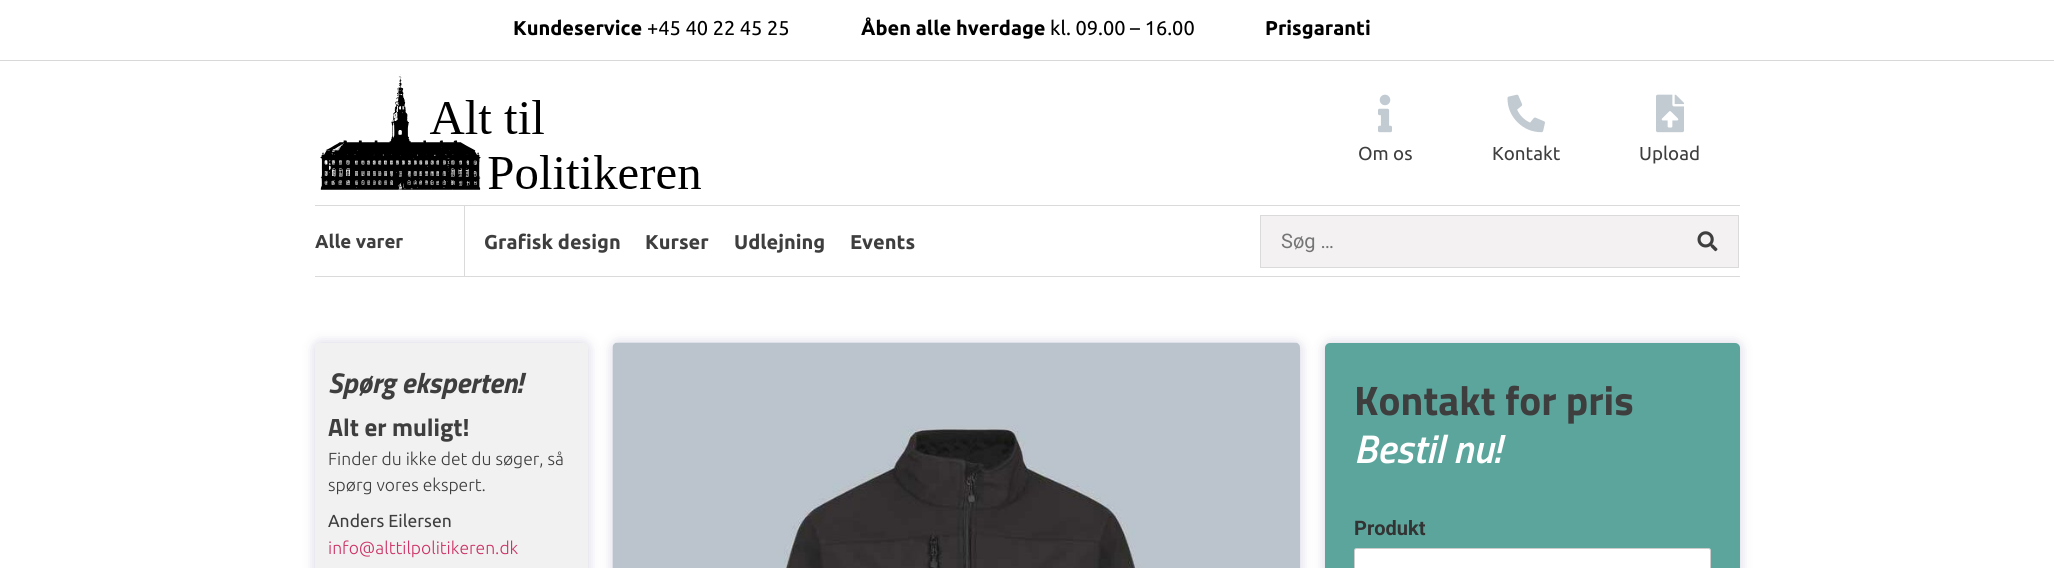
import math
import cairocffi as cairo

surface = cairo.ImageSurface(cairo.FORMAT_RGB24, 2054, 568)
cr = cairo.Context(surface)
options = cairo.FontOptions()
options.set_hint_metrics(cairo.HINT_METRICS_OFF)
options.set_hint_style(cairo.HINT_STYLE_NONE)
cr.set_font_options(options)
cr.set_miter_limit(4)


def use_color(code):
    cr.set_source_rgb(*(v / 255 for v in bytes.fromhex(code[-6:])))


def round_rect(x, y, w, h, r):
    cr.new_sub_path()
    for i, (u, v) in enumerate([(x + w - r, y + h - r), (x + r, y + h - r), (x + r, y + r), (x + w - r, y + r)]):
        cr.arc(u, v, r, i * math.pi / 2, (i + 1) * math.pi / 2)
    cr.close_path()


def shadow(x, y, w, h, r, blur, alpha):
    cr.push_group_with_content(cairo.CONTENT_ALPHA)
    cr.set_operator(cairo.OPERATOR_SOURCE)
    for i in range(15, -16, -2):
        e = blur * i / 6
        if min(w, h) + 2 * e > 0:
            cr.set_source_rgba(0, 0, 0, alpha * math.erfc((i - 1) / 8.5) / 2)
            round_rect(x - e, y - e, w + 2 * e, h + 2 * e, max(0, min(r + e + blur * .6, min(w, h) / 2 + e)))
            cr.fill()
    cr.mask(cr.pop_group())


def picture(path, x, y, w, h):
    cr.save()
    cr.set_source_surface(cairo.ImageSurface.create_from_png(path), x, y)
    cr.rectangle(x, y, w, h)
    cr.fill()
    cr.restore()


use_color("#ffffff")
cr.paint()
use_color("#d8d8d8")
cr.rectangle(0, 60, 2054, 1)
cr.fill()
cr.select_font_face("Ubuntu", cairo.FONT_SLANT_NORMAL, cairo.FONT_WEIGHT_BOLD)
cr.set_font_size(20)
use_color("#000000")
cr.move_to(513, 35)
cr.show_text("Kundeservice")
cr.select_font_face("Ubuntu")
cr.move_to(647, 35)
cr.show_text("+45 40 22 45 25")
cr.select_font_face("Ubuntu", cairo.FONT_SLANT_NORMAL, cairo.FONT_WEIGHT_BOLD)
cr.move_to(861, 35)
cr.show_text("Åben alle hverdage")
cr.select_font_face("Ubuntu")
cr.move_to(1050, 35)
cr.show_text("kl. 09.00 – 16.00")
cr.select_font_face("Ubuntu", cairo.FONT_SLANT_NORMAL, cairo.FONT_WEIGHT_BOLD)
cr.move_to(1265, 35)
cr.show_text("Prisgaranti")
use_color("#dadada")
cr.rectangle(315, 205, 1425, 1)
cr.fill()
picture("img1.png", 320, 74, 381, 116)
picture("img2.png", 1378, 94, 14, 39)
cr.select_font_face("Ubuntu")
cr.set_font_size(18.75)
use_color("#3e3e3e")
cr.move_to(1358, 160)
cr.show_text("Om os")
picture("img3.png", 1507, 94, 38, 39)
cr.move_to(1492, 160)
cr.show_text("Kontakt")
picture("img4.png", 1656, 94, 28, 39)
cr.move_to(1639, 160)
cr.show_text("Upload")
use_color("#dadada")
cr.rectangle(315, 276, 1425, 1)
cr.fill()
cr.rectangle(464, 206, 1, 70)
cr.fill()
cr.select_font_face("Ubuntu", cairo.FONT_SLANT_NORMAL, cairo.FONT_WEIGHT_BOLD)
use_color("#3e3e3e")
cr.move_to(315, 248)
cr.show_text("Alle varer")
cr.set_font_size(20)
cr.move_to(484, 249)
cr.show_text("Grafisk design")
cr.move_to(645, 249)
cr.show_text("Kurser")
cr.move_to(734, 249)
cr.show_text("Udlejning")
cr.move_to(850, 249)
cr.show_text("Events")
use_color("#f3f1f2")
cr.rectangle(1260.5, 215.5, 478, 52)
cr.fill_preserve()
use_color("#dadada")
cr.set_line_width(1)
cr.stroke()
cr.select_font_face("Roboto")
use_color("#757575")
cr.move_to(1281, 248)
cr.show_text("Søg …")
picture("img5.png", 1697, 231, 21, 21)
use_color("#2e2a71")
shadow(315, 343, 273, 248, 5, 6, 0.21)
use_color("#f1f1f1")
round_rect(315, 343, 273, 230, 5)
cr.fill()
cr.select_font_face("Titillium Web", cairo.FONT_SLANT_ITALIC, cairo.FONT_WEIGHT_BOLD)
cr.set_font_size(28.75)
use_color("#3e3e3e")
cr.move_to(328, 393)
cr.show_text("Spørg eksperten!")
cr.select_font_face("Titillium Web", cairo.FONT_SLANT_NORMAL, cairo.FONT_WEIGHT_BOLD)
cr.set_font_size(25)
cr.move_to(328, 436)
cr.show_text("Alt er muligt!")
cr.select_font_face("Ubuntu Light")
cr.set_font_size(17.5)
cr.move_to(328, 465)
cr.show_text("Finder du ikke det du søger, så")
cr.move_to(328, 491)
cr.show_text("spørg vores ekspert.")
cr.select_font_face("Ubuntu")
cr.move_to(328, 527)
cr.show_text("Anders Eilersen")
cr.select_font_face("Ubuntu Light")
use_color("#cc3366")
cr.move_to(328, 554)
cr.show_text("info@alttilpolitikeren.dk")
use_color("#2e2a71")
shadow(613, 343, 687, 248, 5, 6, 0.21)
picture("img6.png", 612, 342, 688, 226)
shadow(1325, 343, 415, 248, 5, 6, 0.21)
use_color("#5ba59c")
round_rect(1325, 343, 415, 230, 5)
cr.fill()
cr.select_font_face("Titillium Web", cairo.FONT_SLANT_NORMAL, cairo.FONT_WEIGHT_BOLD)
cr.set_font_size(41.25)
use_color("#3e3e3e")
cr.move_to(1354, 415)
cr.show_text("Kontakt for pris")
cr.select_font_face("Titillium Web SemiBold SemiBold", cairo.FONT_SLANT_ITALIC)
cr.set_font_size(40)
use_color("#ffffff")
cr.move_to(1354, 463)
cr.show_text("Bestil nu!")
cr.select_font_face("Roboto", cairo.FONT_SLANT_NORMAL, cairo.FONT_WEIGHT_BOLD)
cr.set_font_size(20)
use_color("#333333")
cr.move_to(1354, 535)
cr.show_text("Produkt")
use_color("#ffffff")
round_rect(1354.5, 548.5, 356, 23, 2)
cr.fill_preserve()
use_color("#cccccc")
cr.stroke()
surface.write_to_png("result.png")
